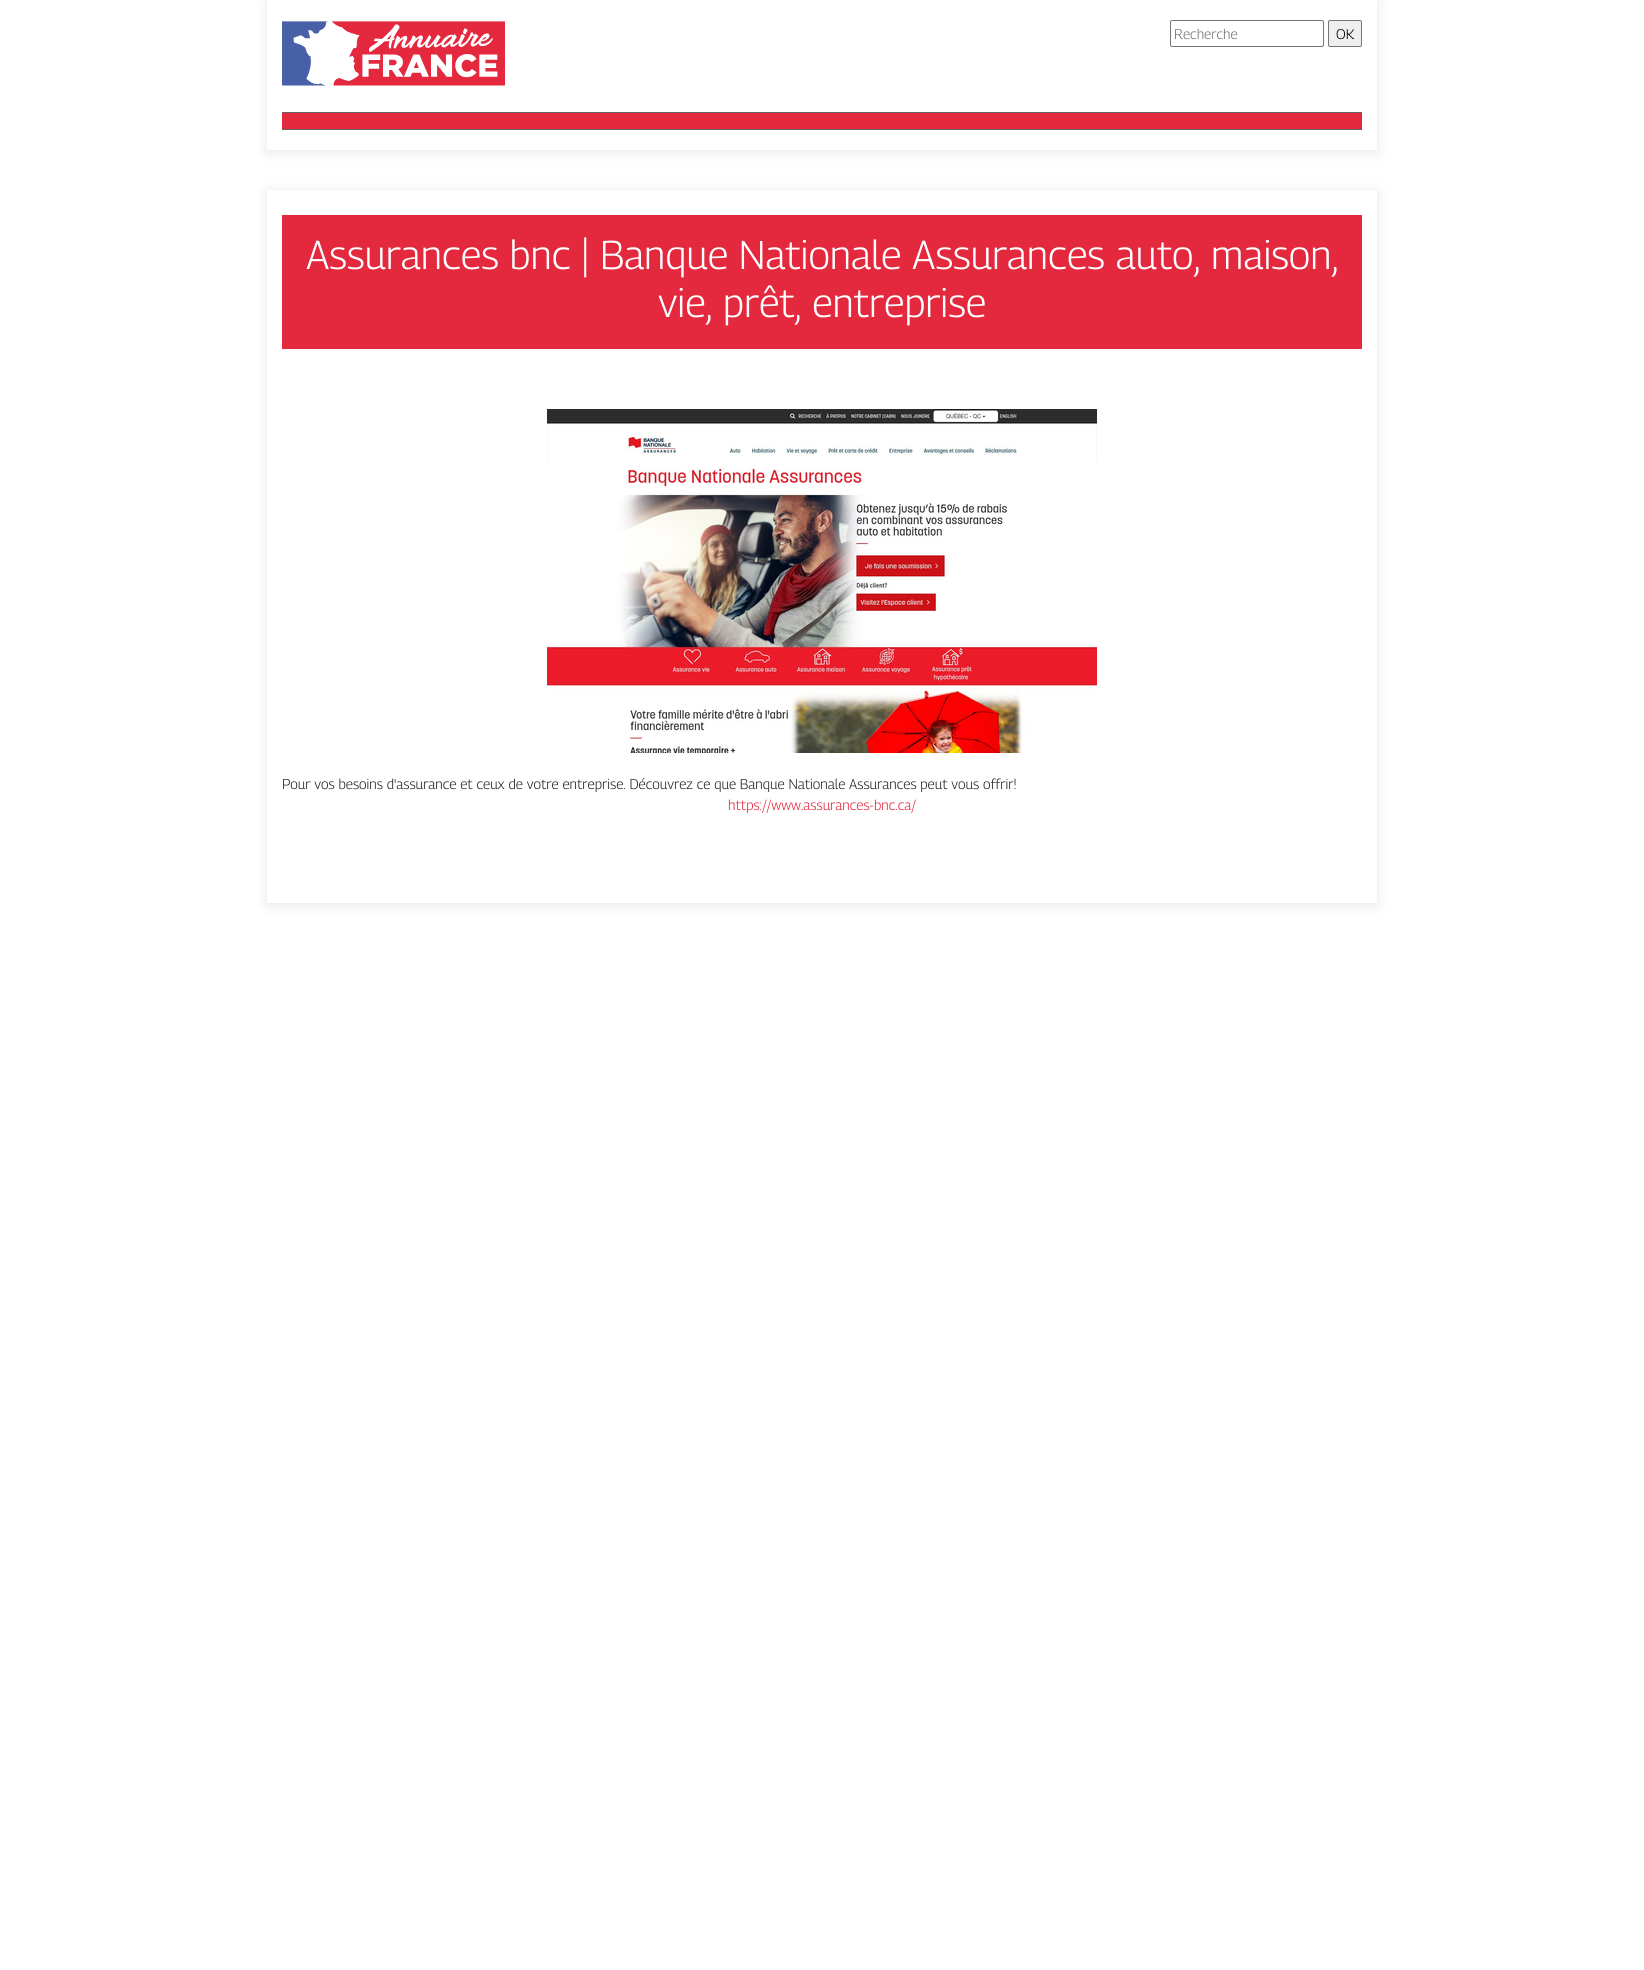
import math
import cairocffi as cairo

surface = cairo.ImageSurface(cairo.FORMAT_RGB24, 1644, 1970)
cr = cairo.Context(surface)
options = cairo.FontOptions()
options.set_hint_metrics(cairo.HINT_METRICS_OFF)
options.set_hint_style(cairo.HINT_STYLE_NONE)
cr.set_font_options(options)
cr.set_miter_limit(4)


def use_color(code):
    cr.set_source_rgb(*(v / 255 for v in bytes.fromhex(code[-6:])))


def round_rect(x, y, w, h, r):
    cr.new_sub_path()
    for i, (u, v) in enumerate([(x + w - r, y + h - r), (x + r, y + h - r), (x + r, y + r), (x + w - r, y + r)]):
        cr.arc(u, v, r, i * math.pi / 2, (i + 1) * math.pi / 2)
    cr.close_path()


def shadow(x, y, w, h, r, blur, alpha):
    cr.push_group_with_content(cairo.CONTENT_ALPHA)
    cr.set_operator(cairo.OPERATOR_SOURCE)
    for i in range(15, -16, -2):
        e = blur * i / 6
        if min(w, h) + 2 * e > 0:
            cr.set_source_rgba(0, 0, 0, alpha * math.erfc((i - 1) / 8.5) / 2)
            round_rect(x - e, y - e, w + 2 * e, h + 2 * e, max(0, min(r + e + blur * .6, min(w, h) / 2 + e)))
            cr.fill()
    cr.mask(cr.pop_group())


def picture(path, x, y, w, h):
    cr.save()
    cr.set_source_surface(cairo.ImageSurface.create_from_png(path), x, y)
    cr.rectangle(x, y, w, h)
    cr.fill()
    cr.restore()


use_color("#ffffff")
cr.paint()
cr.save()
cr.set_fill_rule(cairo.FILL_RULE_EVEN_ODD)
cr.new_path()
cr.move_to(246, 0)
cr.line_to(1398, 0)
cr.line_to(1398, 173)
cr.line_to(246, 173)
cr.close_path()
cr.move_to(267, 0)
cr.line_to(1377, 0)
cr.line_to(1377, 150)
cr.line_to(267, 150)
cr.close_path()
cr.clip()
use_color("#000000")
shadow(267, 2, 1110, 150, 0, 6.5, 0.1)
cr.restore()
picture("img1.png", 282, 21, 223, 65)
round_rect(1170.5, 20.5, 153, 26, 1.5)
use_color("#767676")
cr.set_line_width(1)
cr.stroke()
cr.select_font_face("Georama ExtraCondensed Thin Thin")
cr.set_font_size(14)
use_color("#757575")
cr.move_to(1174, 39)
cr.show_text("Recherche")
use_color("#efefef")
round_rect(1328.5, 20.5, 33, 26, 1.5)
cr.fill_preserve()
use_color("#767676")
cr.stroke()
use_color("#000000")
cr.move_to(1336, 39)
cr.show_text("OK")
use_color("#e4283d")
cr.rectangle(282, 112, 1080, 18)
cr.fill()
cr.new_path()
cr.move_to(282, 112.5)
cr.line_to(1362, 112.5)
use_color("#666666")
cr.set_dash([1, 1])
cr.stroke()
cr.new_path()
cr.move_to(282, 129.5)
cr.line_to(1362, 129.5)
cr.stroke()
cr.save()
cr.set_fill_rule(cairo.FILL_RULE_EVEN_ODD)
cr.new_path()
cr.move_to(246, 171)
cr.line_to(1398, 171)
cr.line_to(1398, 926)
cr.line_to(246, 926)
cr.close_path()
cr.move_to(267, 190)
cr.line_to(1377, 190)
cr.line_to(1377, 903)
cr.line_to(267, 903)
cr.close_path()
cr.clip()
use_color("#000000")
shadow(267, 192, 1110, 713, 0, 6.5, 0.1)
cr.restore()
use_color("#e4283d")
cr.rectangle(282, 215, 1080, 134)
cr.fill()
cr.set_font_size(40)
use_color("#ffffff")
cr.move_to(306, 269)
cr.show_text("Assurances bnc | Banque Nationale Assurances auto, maison,")
cr.move_to(658, 317)
cr.show_text("vie, prêt, entreprise")
picture("img2.png", 547, 409, 550, 344)
cr.set_font_size(14)
use_color("#212529")
cr.move_to(282, 789)
cr.show_text("Pour vos besoins d'assurance et ceux de votre entreprise. Découvrez ce que Banque Nationale Assurances peut vous offrir!")
use_color("#e4283d")
cr.move_to(728, 810)
cr.show_text("https://www.assurances-bnc.ca/")
surface.write_to_png("result.png")
